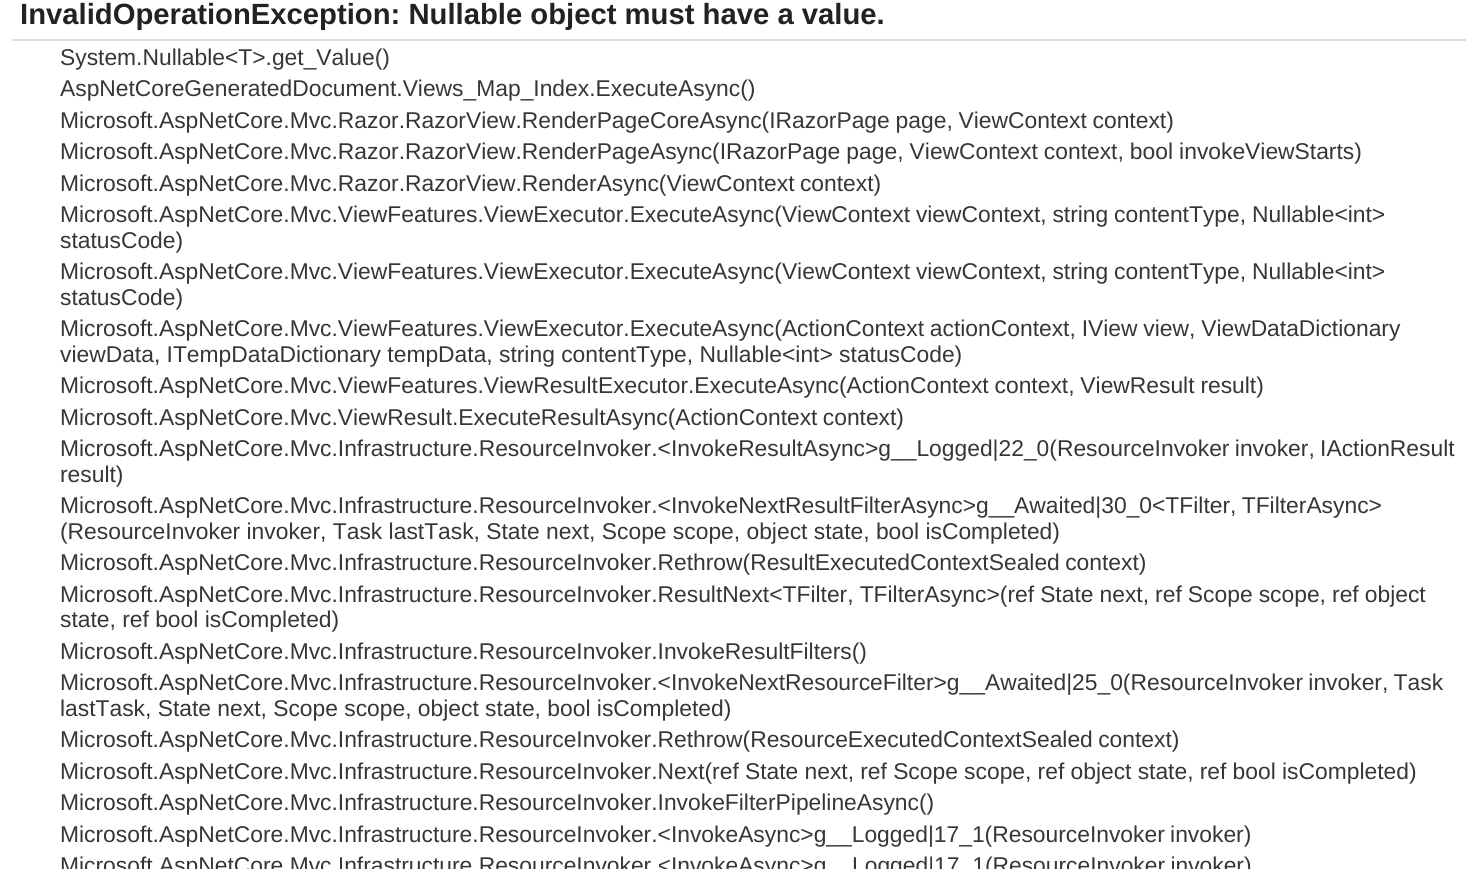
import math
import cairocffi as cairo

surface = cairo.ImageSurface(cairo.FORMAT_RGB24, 1484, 869)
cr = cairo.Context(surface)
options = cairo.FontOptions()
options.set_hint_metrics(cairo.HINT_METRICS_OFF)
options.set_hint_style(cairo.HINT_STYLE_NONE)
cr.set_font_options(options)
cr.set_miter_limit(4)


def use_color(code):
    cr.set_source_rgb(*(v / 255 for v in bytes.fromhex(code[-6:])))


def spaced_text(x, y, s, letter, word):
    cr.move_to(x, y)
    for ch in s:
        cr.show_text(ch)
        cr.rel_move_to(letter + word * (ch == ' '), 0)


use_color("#ffffff")
cr.paint()
use_color("#dddddd")
cr.rectangle(12, 39, 1454, 2)
cr.fill()
cr.select_font_face("Liberation Sans", cairo.FONT_SLANT_NORMAL, cairo.FONT_WEIGHT_BOLD)
cr.set_font_size(29.25)
use_color("#222222")
cr.move_to(20, 24)
cr.show_text("InvalidOperationException: Nullable object must have a value.")
cr.select_font_face("Liberation Sans")
cr.set_font_size(22.83)
use_color("#363636")
cr.move_to(60, 65)
cr.show_text("System.Nullable<T>.get_Value()")
cr.move_to(60, 96)
cr.show_text("AspNetCoreGeneratedDocument.Views_Map_Index.ExecuteAsync()")
spaced_text(60, 128, "Microsoft.AspNetCore.Mvc.Razor.RazorView.RenderPageCoreAsync(IRazorPage page, ViewContext context)", 0, -0.5)
spaced_text(60, 159, "Microsoft.AspNetCore.Mvc.Razor.RazorView.RenderPageAsync(IRazorPage page, ViewContext context, bool invokeViewStarts)", 0, -0.25)
spaced_text(60, 191, "Microsoft.AspNetCore.Mvc.Razor.RazorView.RenderAsync(ViewContext context)", 0, -1)
spaced_text(60, 222, "Microsoft.AspNetCore.Mvc.ViewFeatures.ViewExecutor.ExecuteAsync(ViewContext viewContext, string contentType, Nullable<int>", 0, -0.5)
cr.move_to(60, 248)
cr.show_text("statusCode)")
spaced_text(60, 279, "Microsoft.AspNetCore.Mvc.ViewFeatures.ViewExecutor.ExecuteAsync(ViewContext viewContext, string contentType, Nullable<int>", 0, -0.5)
cr.move_to(60, 305)
cr.show_text("statusCode)")
spaced_text(60, 336, "Microsoft.AspNetCore.Mvc.ViewFeatures.ViewExecutor.ExecuteAsync(ActionContext actionContext, IView view, ViewDataDictionary", 0, -0.5)
cr.move_to(60, 362)
cr.show_text("viewData, ITempDataDictionary tempData, string contentType, Nullable<int> statusCode)")
spaced_text(60, 393, "Microsoft.AspNetCore.Mvc.ViewFeatures.ViewResultExecutor.ExecuteAsync(ActionContext context, ViewResult result)", 0, -0.5)
spaced_text(60, 425, "Microsoft.AspNetCore.Mvc.ViewResult.ExecuteResultAsync(ActionContext context)", 0, -1)
spaced_text(60, 456, "Microsoft.AspNetCore.Mvc.Infrastructure.ResourceInvoker.<InvokeResultAsync>g__Logged|22_0(ResourceInvoker invoker, IActionResult", 0, -1)
cr.move_to(60, 482)
cr.show_text("result)")
spaced_text(60, 513, "Microsoft.AspNetCore.Mvc.Infrastructure.ResourceInvoker.<InvokeNextResultFilterAsync>g__Awaited|30_0<TFilter, TFilterAsync>", 0, -1)
cr.move_to(60, 539)
cr.show_text("(ResourceInvoker invoker, Task lastTask, State next, Scope scope, object state, bool isCompleted)")
spaced_text(60, 570, "Microsoft.AspNetCore.Mvc.Infrastructure.ResourceInvoker.Rethrow(ResultExecutedContextSealed context)", 0, -1)
spaced_text(60, 602, "Microsoft.AspNetCore.Mvc.Infrastructure.ResourceInvoker.ResultNext<TFilter, TFilterAsync>(ref State next, ref Scope scope, ref object", 0, -0.25)
cr.move_to(60, 627)
cr.show_text("state, ref bool isCompleted)")
cr.move_to(60, 659)
cr.show_text("Microsoft.AspNetCore.Mvc.Infrastructure.ResourceInvoker.InvokeResultFilters()")
spaced_text(60, 690, "Microsoft.AspNetCore.Mvc.Infrastructure.ResourceInvoker.<InvokeNextResourceFilter>g__Awaited|25_0(ResourceInvoker invoker, Task", 0, -1)
cr.move_to(60, 716)
cr.show_text("lastTask, State next, Scope scope, object state, bool isCompleted)")
spaced_text(60, 747, "Microsoft.AspNetCore.Mvc.Infrastructure.ResourceInvoker.Rethrow(ResourceExecutedContextSealed context)", 0, -1)
spaced_text(60, 779, "Microsoft.AspNetCore.Mvc.Infrastructure.ResourceInvoker.Next(ref State next, ref Scope scope, ref object state, ref bool isCompleted)", 0, -0.1)
cr.move_to(60, 810)
cr.show_text("Microsoft.AspNetCore.Mvc.Infrastructure.ResourceInvoker.InvokeFilterPipelineAsync()")
spaced_text(60, 842, "Microsoft.AspNetCore.Mvc.Infrastructure.ResourceInvoker.<InvokeAsync>g__Logged|17_1(ResourceInvoker invoker)", 0, -1)
spaced_text(60, 873, "Microsoft.AspNetCore.Mvc.Infrastructure.ResourceInvoker.<InvokeAsync>g", 0, -1)
spaced_text(852, 873, "Logged|17_1(ResourceInvoker invoker)", 0, -1)
surface.write_to_png("result.png")
